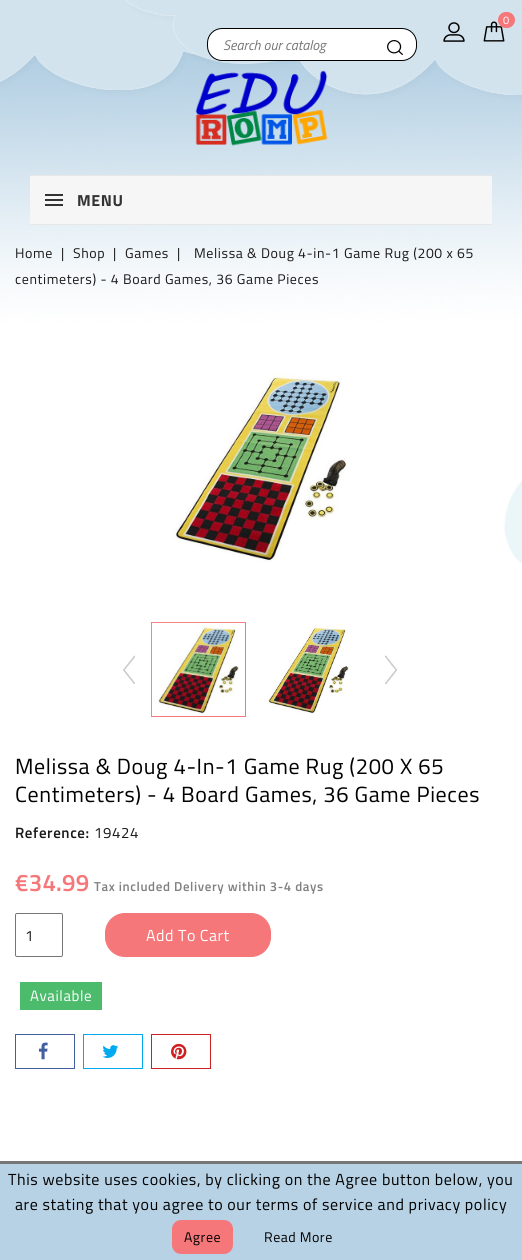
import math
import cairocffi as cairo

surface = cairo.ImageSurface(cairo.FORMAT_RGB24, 522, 1260)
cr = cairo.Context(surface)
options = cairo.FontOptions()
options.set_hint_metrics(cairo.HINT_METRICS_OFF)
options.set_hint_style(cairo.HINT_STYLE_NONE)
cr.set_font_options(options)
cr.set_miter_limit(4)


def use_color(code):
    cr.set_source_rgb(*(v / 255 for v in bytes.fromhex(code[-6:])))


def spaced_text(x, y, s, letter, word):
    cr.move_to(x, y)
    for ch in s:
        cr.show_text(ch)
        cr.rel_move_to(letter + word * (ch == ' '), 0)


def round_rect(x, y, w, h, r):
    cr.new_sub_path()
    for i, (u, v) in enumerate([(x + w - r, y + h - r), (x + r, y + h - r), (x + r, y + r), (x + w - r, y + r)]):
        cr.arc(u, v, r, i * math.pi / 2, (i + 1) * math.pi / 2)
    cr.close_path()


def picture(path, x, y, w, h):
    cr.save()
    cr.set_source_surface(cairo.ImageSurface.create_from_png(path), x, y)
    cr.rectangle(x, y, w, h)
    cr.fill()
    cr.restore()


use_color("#ffffff")
cr.paint()
picture("img1.png", 0, 0, 522, 564)
picture("img2.png", 483, 21, 22, 21)
use_color("#f57779")
round_rect(498, 12, 17, 16, 8)
cr.fill()
cr.select_font_face("Titillium Web")
cr.set_font_size(11)
use_color("#ffffff")
spaced_text(503, 24, "0", 0.6, 0)
picture("img3.png", 443, 22, 22, 20)
round_rect(207.5, 28.5, 209, 32, 14.5)
cr.fill_preserve()
use_color("#000000")
cr.set_line_width(1)
cr.stroke()
cr.select_font_face("Titillium Web", cairo.FONT_SLANT_ITALIC)
cr.set_font_size(14)
use_color("#757575")
cr.move_to(223, 50)
cr.show_text("Search our catalog")
picture("img4.png", 387, 40, 16, 15)
picture("img5.png", 195, 70, 133, 76)
use_color("#e7e7e7")
cr.rectangle(30, 175, 462, 1)
cr.fill()
cr.rectangle(30, 224, 462, 1)
cr.fill()
use_color("#f6f6f6")
cr.rectangle(30, 176, 462, 48)
cr.fill()
use_color("#333333")
cr.rectangle(45, 194, 18, 2)
cr.fill()
cr.rectangle(45, 199, 18, 2)
cr.fill()
cr.rectangle(45, 204, 18, 2)
cr.fill()
cr.select_font_face("Titillium Web", cairo.FONT_SLANT_NORMAL, cairo.FONT_WEIGHT_BOLD)
cr.set_font_size(16)
spaced_text(77, 206, "MENU", 0.6, 0)
cr.select_font_face("Titillium Web")
cr.set_font_size(14)
use_color("#191919")
spaced_text(15, 258, "Home", 0.6, 0)
spaced_text(61, 258, "|", 0.6, 0)
spaced_text(73, 258, "Shop", 0.6, 0)
spaced_text(113, 258, "|", 0.6, 0)
spaced_text(125, 258, "Games", 0.6, 0)
spaced_text(177, 258, "|", 0.6, 0)
spaced_text(194, 258, "Melissa & Doug 4-in-1 Game Rug (200 x 65", 0.6, 0)
spaced_text(15, 284, "centimeters) - 4 Board Games, 36 Game Pieces", 0.6, 0)
picture("img6.png", 172, 372, 175, 191)
cr.rectangle(151.5, 622.5, 94, 94)
use_color("#f57779")
cr.stroke()
picture("img7.png", 151, 622, 94, 94)
picture("img8.png", 267, 627, 82, 88)
picture("img9.png", 123, 655, 12, 29)
picture("img10.png", 385, 655, 12, 29)
cr.set_font_size(22)
use_color("#000000")
spaced_text(15, 774, "Melissa & Doug 4-In-1 Game Rug (200 X 65", 0.6, 0)
spaced_text(15, 802, "Centimeters) - 4 Board Games, 36 Game Pieces", 0.6, 0)
cr.select_font_face("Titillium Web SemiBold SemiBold")
cr.set_font_size(15)
use_color("#191919")
spaced_text(15, 838, "Reference:", 0.6, 0)
cr.select_font_face("Titillium Web")
spaced_text(94, 838, "19424", 0.6, 0)
cr.select_font_face("Titillium Web SemiBold SemiBold")
cr.set_font_size(24)
use_color("#f57779")
spaced_text(15, 891, "€34.99", 0.25, 0)
cr.set_font_size(13)
use_color("#808080")
spaced_text(94, 891, "Tax included Delivery within 3-4 days", 0.6, 0)
round_rect(15.5, 913.5, 47, 43, 1.5)
use_color("#767676")
cr.stroke()
cr.select_font_face("Titillium Web")
cr.set_font_size(15)
use_color("#191919")
cr.move_to(25, 941)
cr.show_text("1")
use_color("#f57779")
round_rect(105.5, 913.5, 165, 43, 19.5)
cr.fill_preserve()
cr.stroke()
cr.set_font_size(16)
use_color("#ffffff")
spaced_text(146, 941, "Add To Cart", 0.5, 0)
use_color("#4cbb6c")
cr.rectangle(20, 982, 82, 28)
cr.fill()
cr.set_font_size(15)
use_color("#ffffff")
spaced_text(30, 1001, "Available", 0.6, 0)
cr.rectangle(15.5, 1034.5, 59, 34)
use_color("#435f9f")
cr.stroke()
picture("img11.png", 38, 1042, 10, 18)
cr.rectangle(83.5, 1034.5, 59, 34)
use_color("#00aaf0")
cr.stroke()
picture("img12.png", 102, 1045, 17, 13)
cr.rectangle(151.5, 1034.5, 59, 34)
use_color("#ce1f21")
cr.stroke()
picture("img13.png", 171, 1043, 16, 17)
use_color("#b7d2e5")
cr.rectangle(0, 1164, 522, 96)
cr.fill()
use_color("#777777")
cr.rectangle(0, 1161, 522, 3)
cr.fill()
cr.set_font_size(16)
use_color("#000000")
spaced_text(8, 1185, "This website uses cookies, by clicking on the Agree button below, you", 0.6, 0)
spaced_text(15, 1210, "are stating that you agree to our terms of service and privacy policy", 0.6, 0)
use_color("#f57779")
round_rect(172, 1220, 61, 34, 9)
cr.fill()
cr.set_font_size(14)
use_color("#000000")
spaced_text(184, 1242, "Agree", 0.5, 0)
spaced_text(264, 1242, "Read More", 0.5, 0)
surface.write_to_png("result.png")
